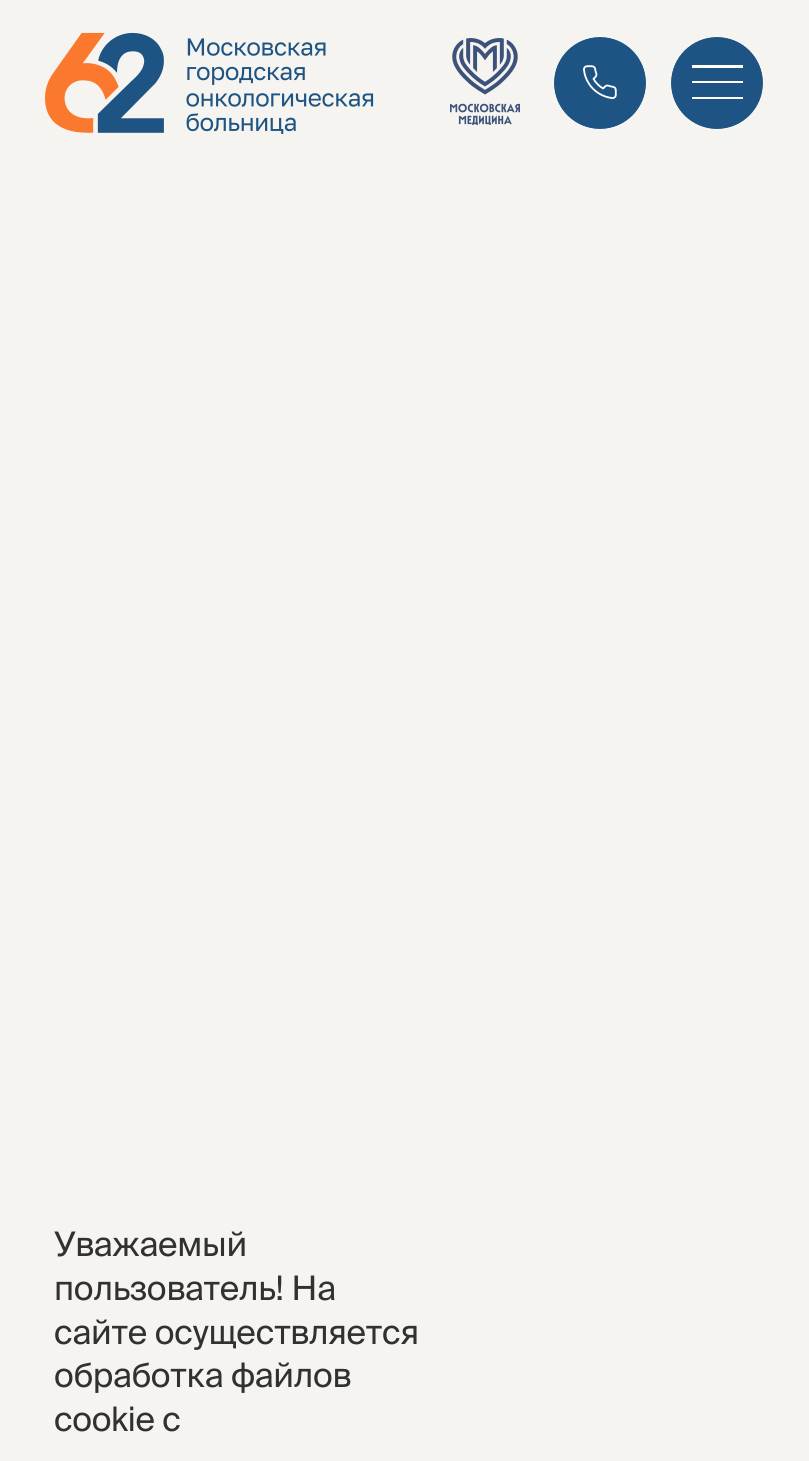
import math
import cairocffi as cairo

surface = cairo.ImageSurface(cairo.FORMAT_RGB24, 809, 1461)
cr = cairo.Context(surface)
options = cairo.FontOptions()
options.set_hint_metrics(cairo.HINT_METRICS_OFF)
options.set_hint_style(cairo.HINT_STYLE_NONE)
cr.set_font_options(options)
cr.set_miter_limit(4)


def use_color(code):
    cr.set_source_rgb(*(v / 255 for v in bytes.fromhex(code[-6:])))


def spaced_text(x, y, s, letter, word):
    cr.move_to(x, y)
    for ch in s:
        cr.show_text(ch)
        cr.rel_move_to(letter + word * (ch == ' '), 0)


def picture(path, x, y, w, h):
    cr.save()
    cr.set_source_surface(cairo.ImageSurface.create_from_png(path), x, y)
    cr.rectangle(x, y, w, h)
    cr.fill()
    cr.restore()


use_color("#f6f4f0")
cr.paint()
picture("img1.png", 45, 32, 329, 102)
picture("img2.png", 450, 38, 70, 87)
use_color("#1e5484")
cr.arc(600, 83, 46.5, 0, 2 * math.pi)
cr.fill_preserve()
use_color("#fffefb")
cr.set_line_width(1)
cr.stroke()
picture("img3.png", 583, 65, 34, 34)
use_color("#1e5484")
cr.arc(717, 83, 46.5, 0, 2 * math.pi)
cr.fill_preserve()
use_color("#fffefb")
cr.stroke()
cr.new_path()
cr.move_to(692, 65)
cr.line_to(692, 68)
cr.line_to(743, 68)
cr.line_to(743, 65)
cr.close_path()
cr.move_to(692, 81)
cr.line_to(692, 83)
cr.line_to(743, 83)
cr.line_to(743, 81)
cr.close_path()
cr.move_to(692, 97)
cr.line_to(692, 99)
cr.line_to(743, 99)
cr.line_to(743, 97)
cr.close_path()
cr.fill()
cr.select_font_face("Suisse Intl")
cr.set_font_size(33.75)
use_color("#313130")
spaced_text(54, 1256, "Уважаемый", -0.3, 0)
spaced_text(54, 1300, "пользователь! На", -0.3, 0)
spaced_text(54, 1344, "сайте осуществляется", -0.3, 0)
spaced_text(54, 1387, "обработка файлов", -0.3, 0)
spaced_text(54, 1431, "cookie с", -0.3, 0)
surface.write_to_png("result.png")
